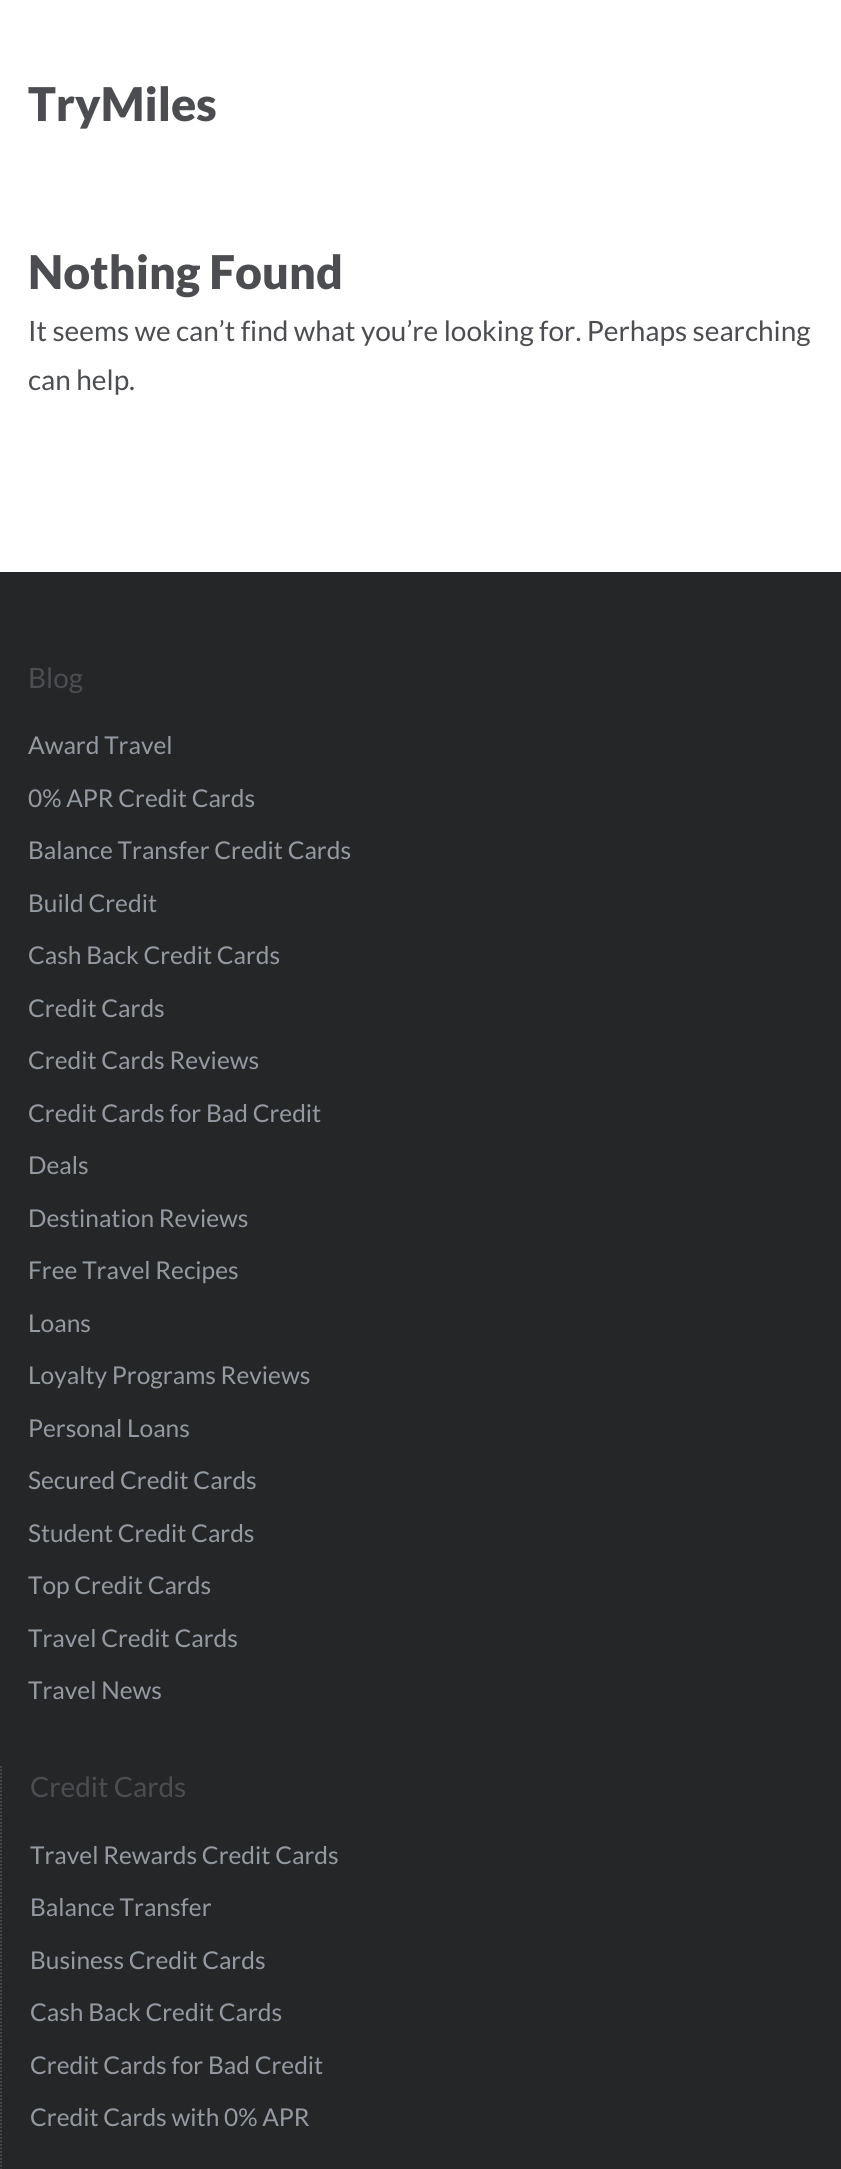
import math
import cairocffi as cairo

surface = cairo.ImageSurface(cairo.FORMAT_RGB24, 841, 2169)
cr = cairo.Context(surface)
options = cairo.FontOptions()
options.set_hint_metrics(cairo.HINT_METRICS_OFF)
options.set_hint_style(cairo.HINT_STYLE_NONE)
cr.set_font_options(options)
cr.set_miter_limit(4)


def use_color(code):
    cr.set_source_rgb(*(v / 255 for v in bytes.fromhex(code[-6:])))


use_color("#ffffff")
cr.paint()
cr.select_font_face("Lato Black")
cr.set_font_size(46.5)
use_color("#4b4d50")
cr.move_to(28, 121)
cr.show_text("TryMiles")
cr.move_to(28, 289)
cr.show_text("Nothing Found")
cr.select_font_face("Lato")
cr.set_font_size(28)
cr.move_to(28, 341)
cr.show_text("It seems we can’t find what you’re looking for. Perhaps searching")
cr.move_to(28, 390)
cr.show_text("can help.")
use_color("#252628")
cr.rectangle(0, 572, 841, 1597)
cr.fill()
use_color("#4b4d50")
cr.move_to(28, 688)
cr.show_text("Blog")
cr.set_font_size(24.5)
use_color("#959aa1")
cr.move_to(28, 754)
cr.show_text("Award Travel")
cr.move_to(28, 807)
cr.show_text("0% APR Credit Cards")
cr.move_to(28, 859)
cr.show_text("Balance Transfer Credit Cards")
cr.move_to(28, 912)
cr.show_text("Build Credit")
cr.move_to(28, 964)
cr.show_text("Cash Back Credit Cards")
cr.move_to(28, 1017)
cr.show_text("Credit Cards")
cr.move_to(28, 1069)
cr.show_text("Credit Cards Reviews")
cr.move_to(28, 1122)
cr.show_text("Credit Cards for Bad Credit")
cr.move_to(28, 1174)
cr.show_text("Deals")
cr.move_to(28, 1227)
cr.show_text("Destination Reviews")
cr.move_to(28, 1279)
cr.show_text("Free Travel Recipes")
cr.move_to(28, 1332)
cr.show_text("Loans")
cr.move_to(28, 1384)
cr.show_text("Loyalty Programs Reviews")
cr.move_to(28, 1437)
cr.show_text("Personal Loans")
cr.move_to(28, 1489)
cr.show_text("Secured Credit Cards")
cr.move_to(28, 1542)
cr.show_text("Student Credit Cards")
cr.move_to(28, 1594)
cr.show_text("Top Credit Cards")
cr.move_to(28, 1647)
cr.show_text("Travel Credit Cards")
cr.move_to(28, 1699)
cr.show_text("Travel News")
cr.new_path()
cr.move_to(1, 1766)
cr.line_to(1, 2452)
use_color("#4b4d50")
cr.set_line_width(1.8)
cr.set_dash([1.75, 1.75])
cr.stroke()
cr.set_font_size(28)
cr.move_to(30, 1797)
cr.show_text("Credit Cards")
cr.set_font_size(24.5)
use_color("#959aa1")
cr.move_to(30, 1864)
cr.show_text("Travel Rewards Credit Cards")
cr.move_to(30, 1916)
cr.show_text("Balance Transfer")
cr.move_to(30, 1969)
cr.show_text("Business Credit Cards")
cr.move_to(30, 2021)
cr.show_text("Cash Back Credit Cards")
cr.move_to(30, 2074)
cr.show_text("Credit Cards for Bad Credit")
cr.move_to(30, 2126)
cr.show_text("Credit Cards with 0% APR")
surface.write_to_png("result.png")
